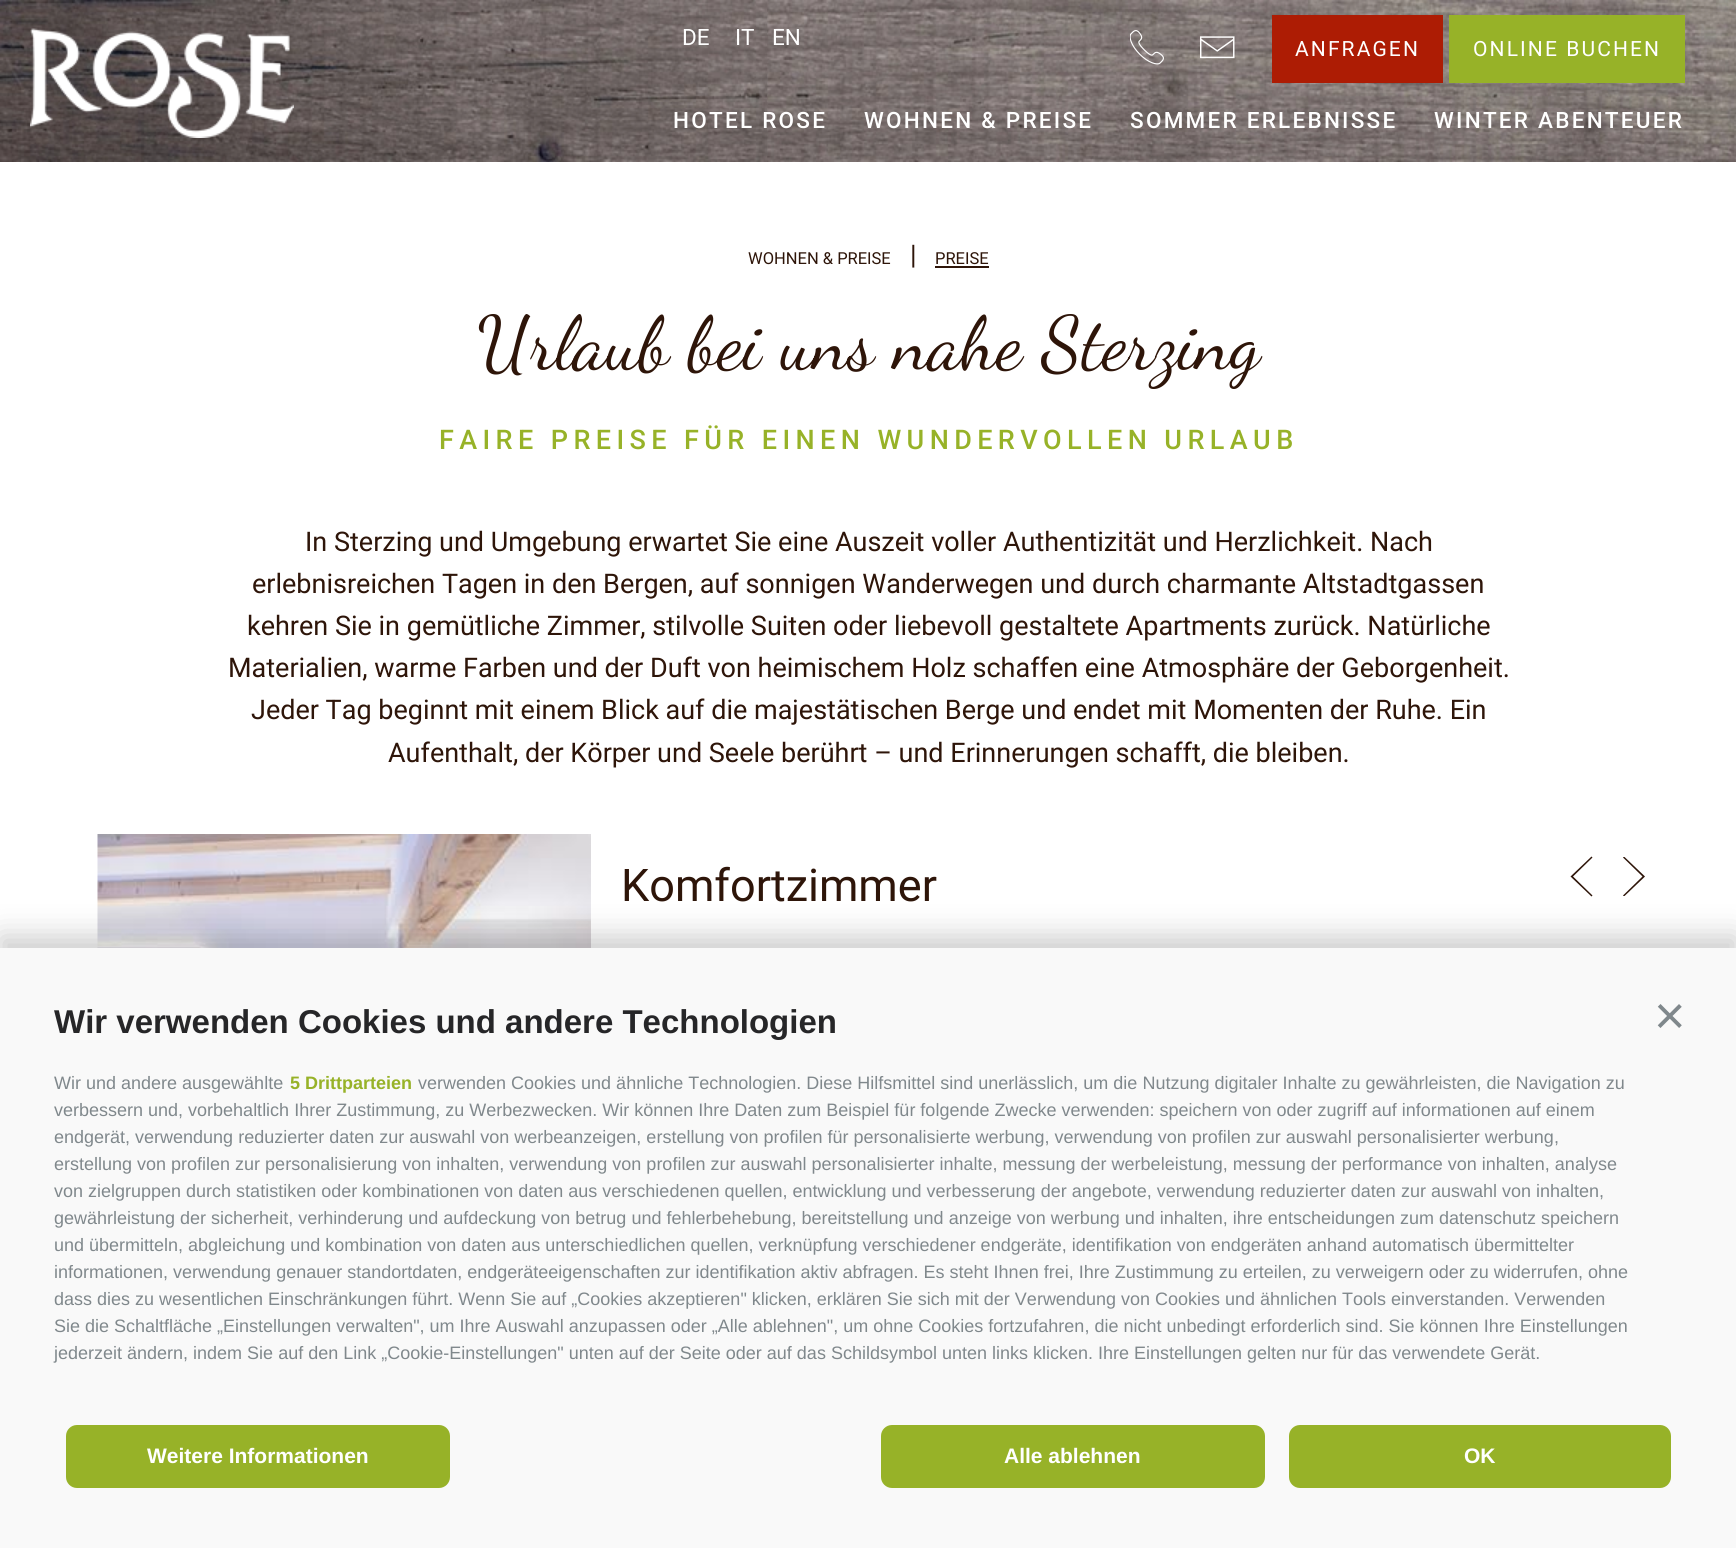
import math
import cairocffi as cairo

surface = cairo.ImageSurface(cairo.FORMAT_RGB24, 1736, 1548)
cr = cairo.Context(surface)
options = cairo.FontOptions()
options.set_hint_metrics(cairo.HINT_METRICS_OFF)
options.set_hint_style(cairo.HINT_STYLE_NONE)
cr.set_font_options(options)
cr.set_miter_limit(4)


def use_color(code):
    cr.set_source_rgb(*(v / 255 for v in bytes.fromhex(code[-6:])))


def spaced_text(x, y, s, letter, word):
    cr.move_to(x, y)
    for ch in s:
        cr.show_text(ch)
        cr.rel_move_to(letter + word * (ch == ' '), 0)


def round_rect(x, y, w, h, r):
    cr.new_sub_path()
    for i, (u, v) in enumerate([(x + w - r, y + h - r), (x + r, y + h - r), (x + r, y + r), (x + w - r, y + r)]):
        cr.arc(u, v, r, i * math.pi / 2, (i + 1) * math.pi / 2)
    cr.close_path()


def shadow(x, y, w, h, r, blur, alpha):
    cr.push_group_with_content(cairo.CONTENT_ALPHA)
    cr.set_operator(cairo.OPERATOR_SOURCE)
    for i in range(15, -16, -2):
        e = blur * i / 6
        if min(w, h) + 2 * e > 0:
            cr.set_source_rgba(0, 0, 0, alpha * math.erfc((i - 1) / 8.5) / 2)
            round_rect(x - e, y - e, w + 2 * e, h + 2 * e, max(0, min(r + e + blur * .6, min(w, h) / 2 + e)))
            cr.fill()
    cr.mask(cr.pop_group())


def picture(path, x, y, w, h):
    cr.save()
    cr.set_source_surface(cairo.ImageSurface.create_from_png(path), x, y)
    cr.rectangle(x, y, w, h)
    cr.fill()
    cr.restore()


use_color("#ffffff")
cr.paint()
picture("img1.png", 0, 0, 1736, 162)
picture("img2.png", 30, 28, 264, 110)
cr.select_font_face("Roboto")
cr.set_font_size(22.5)
use_color("#ffffff")
cr.move_to(682, 45)
cr.show_text("DE")
cr.move_to(735, 45)
cr.show_text("IT")
cr.move_to(772, 45)
cr.show_text("EN")
picture("img3.png", 1130, 30, 34, 35)
picture("img4.png", 1200, 36, 35, 23)
use_color("#ad1c04")
cr.rectangle(1272, 15, 171, 68)
cr.fill()
cr.set_font_size(21)
use_color("#ffffff")
spaced_text(1295, 56, "ANFRAGEN", 2.1, 0)
use_color("#97b228")
cr.rectangle(1449, 15, 236, 68)
cr.fill()
use_color("#ffffff")
spaced_text(1473, 56, "ONLINE BUCHEN", 2.1, 0)
cr.select_font_face("Roboto Medium")
cr.set_font_size(22.5)
spaced_text(673, 128, "HOTEL ROSE", 2.25, 0)
spaced_text(864, 128, "WOHNEN & PREISE", 2.25, 0)
spaced_text(1130, 128, "SOMMER ERLEBNISSE", 2.25, 0)
spaced_text(1434, 128, "WINTER ABENTEUER", 2.25, 0)
cr.select_font_face("Roboto")
cr.set_font_size(16.5)
use_color("#2e1509")
cr.move_to(748, 264)
cr.show_text("WOHNEN & PREISE")
cr.set_font_size(27)
cr.move_to(910, 264)
cr.show_text("|")
cr.set_font_size(16.5)
cr.move_to(935, 264)
cr.show_text("PREISE")
cr.rectangle(935, 266, 54, 2)
cr.fill()
cr.select_font_face("Dancing Script")
cr.set_font_size(75)
cr.move_to(477, 368)
cr.show_text("Urlaub bei uns nahe Sterzing")
cr.select_font_face("Roboto Medium")
cr.set_font_size(27)
use_color("#97b228")
spaced_text(439, 449, "FAIRE PREISE FÜR EINEN WUNDERVOLLEN URLAUB", 5.4, 0)
cr.select_font_face("Roboto")
use_color("#2e1509")
cr.move_to(305, 551)
cr.show_text("In Sterzing und Umgebung erwartet Sie eine Auszeit voller Authentizität und Herzlichkeit. Nach")
cr.move_to(252, 593)
cr.show_text("erlebnisreichen Tagen in den Bergen, auf sonnigen Wanderwegen und durch charmante Altstadtgassen")
cr.move_to(247, 635)
cr.show_text("kehren Sie in gemütliche Zimmer, stilvolle Suiten oder liebevoll gestaltete Apartments zurück. Natürliche")
cr.move_to(228, 677)
cr.show_text("Materialien, warme Farben und der Duft von heimischem Holz schaffen eine Atmosphäre der Geborgenheit.")
cr.move_to(251, 719)
cr.show_text("Jeder Tag beginnt mit einem Blick auf die majestätischen Berge und endet mit Momenten der Ruhe. Ein")
cr.move_to(388, 762)
cr.show_text("Aufenthalt, der Körper und Seele berührt – und Erinnerungen schafft, die bleiben.")
picture("img5.png", 97, 834, 494, 114)
cr.set_font_size(45)
cr.move_to(621, 901)
cr.show_text("Komfortzimmer")
cr.new_path()
cr.move_to(1591.5, 896.5)
cr.line_to(1570.5, 876.5)
cr.line_to(1591.5, 856.5)
cr.line_to(1592.5, 857.5)
cr.line_to(1573, 876.5)
cr.line_to(1592.5, 895.5)
cr.close_path()
cr.fill()
cr.save()
cr.rectangle(1614, 857, 40, 39)
cr.clip()
cr.new_path()
cr.move_to(1624, 896.5)
cr.line_to(1623, 895.5)
cr.line_to(1642.5, 876.5)
cr.line_to(1623, 857.5)
cr.line_to(1624, 856.5)
cr.line_to(1645, 876.5)
cr.close_path()
cr.fill()
cr.restore()
use_color("#000000")
shadow(0, 936, 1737, 600, 0, 15, 0.2)
use_color("#f9f9f9")
cr.rectangle(0, 948, 1736, 600)
cr.fill()
cr.select_font_face("Liberation Sans", cairo.FONT_SLANT_NORMAL, cairo.FONT_WEIGHT_BOLD)
cr.set_font_size(33)
use_color("#262628")
cr.move_to(54, 1033)
cr.show_text("Wir verwenden Cookies und andere Technologien")
cr.select_font_face("Liberation Sans")
cr.set_font_size(54)
use_color("#80888c")
cr.move_to(1654, 1034)
cr.show_text("×")
cr.set_font_size(18)
cr.move_to(54, 1089)
cr.show_text("Wir und andere ausgewählte")
cr.select_font_face("Liberation Sans", cairo.FONT_SLANT_NORMAL, cairo.FONT_WEIGHT_BOLD)
use_color("#97b228")
cr.move_to(290, 1089)
cr.show_text("5 Drittparteien")
cr.select_font_face("Liberation Sans")
use_color("#80888c")
cr.move_to(418, 1089)
cr.show_text("verwenden Cookies und ähnliche Technologien. Diese Hilfsmittel sind unerlässlich, um die Nutzung digitaler Inhalte zu gewährleisten, die Navigation zu")
cr.move_to(54, 1116)
cr.show_text("verbessern und, vorbehaltlich Ihrer Zustimmung, zu Werbezwecken. Wir können Ihre Daten zum Beispiel für folgende Zwecke verwenden: speichern von oder zugriff auf informationen auf einem")
cr.move_to(54, 1143)
cr.show_text("endgerät, verwendung reduzierter daten zur auswahl von werbeanzeigen, erstellung von profilen für personalisierte werbung, verwendung von profilen zur auswahl personalisierter werbung,")
cr.move_to(54, 1170)
cr.show_text("erstellung von profilen zur personalisierung von inhalten, verwendung von profilen zur auswahl personalisierter inhalte, messung der werbeleistung, messung der performance von inhalten, analyse")
cr.move_to(54, 1197)
cr.show_text("von zielgruppen durch statistiken oder kombinationen von daten aus verschiedenen quellen, entwicklung und verbesserung der angebote, verwendung reduzierter daten zur auswahl von inhalten,")
cr.move_to(54, 1224)
cr.show_text("gewährleistung der sicherheit, verhinderung und aufdeckung von betrug und fehlerbehebung, bereitstellung und anzeige von werbung und inhalten, ihre entscheidungen zum datenschutz speichern")
cr.move_to(54, 1251)
cr.show_text("und übermitteln, abgleichung und kombination von daten aus unterschiedlichen quellen, verknüpfung verschiedener endgeräte, identifikation von endgeräten anhand automatisch übermittelter")
cr.move_to(54, 1278)
cr.show_text("informationen, verwendung genauer standortdaten, endgeräteeigenschaften zur identifikation aktiv abfragen. Es steht Ihnen frei, Ihre Zustimmung zu erteilen, zu verweigern oder zu widerrufen, ohne")
cr.move_to(54, 1305)
cr.show_text("dass dies zu wesentlichen Einschränkungen führt. Wenn Sie auf „Cookies akzeptieren\" klicken, erklären Sie sich mit der Verwendung von Cookies und ähnlichen Tools einverstanden. Verwenden")
cr.move_to(54, 1332)
cr.show_text("Sie die Schaltfläche „Einstellungen verwalten\", um Ihre Auswahl anzupassen oder „Alle ablehnen\", um ohne Cookies fortzufahren, die nicht unbedingt erforderlich sind. Sie können Ihre Einstellungen")
cr.move_to(54, 1359)
cr.show_text("jederzeit ändern, indem Sie auf den Link „Cookie-Einstellungen\" unten auf der Seite oder auf das Schildsymbol unten links klicken. Ihre Einstellungen gelten nur für das verwendete Gerät.")
use_color("#97b228")
round_rect(66, 1425, 384, 63, 11)
cr.fill()
cr.select_font_face("Liberation Sans", cairo.FONT_SLANT_NORMAL, cairo.FONT_WEIGHT_BOLD)
cr.set_font_size(21)
use_color("#ffffff")
cr.move_to(147, 1463)
cr.show_text("Weitere Informationen")
use_color("#97b228")
round_rect(881, 1425, 384, 63, 11)
cr.fill()
use_color("#ffffff")
cr.move_to(1004, 1463)
cr.show_text("Alle ablehnen")
use_color("#97b228")
round_rect(1289, 1425, 382, 63, 11)
cr.fill()
use_color("#ffffff")
cr.move_to(1464, 1463)
cr.show_text("OK")
surface.write_to_png("result.png")
